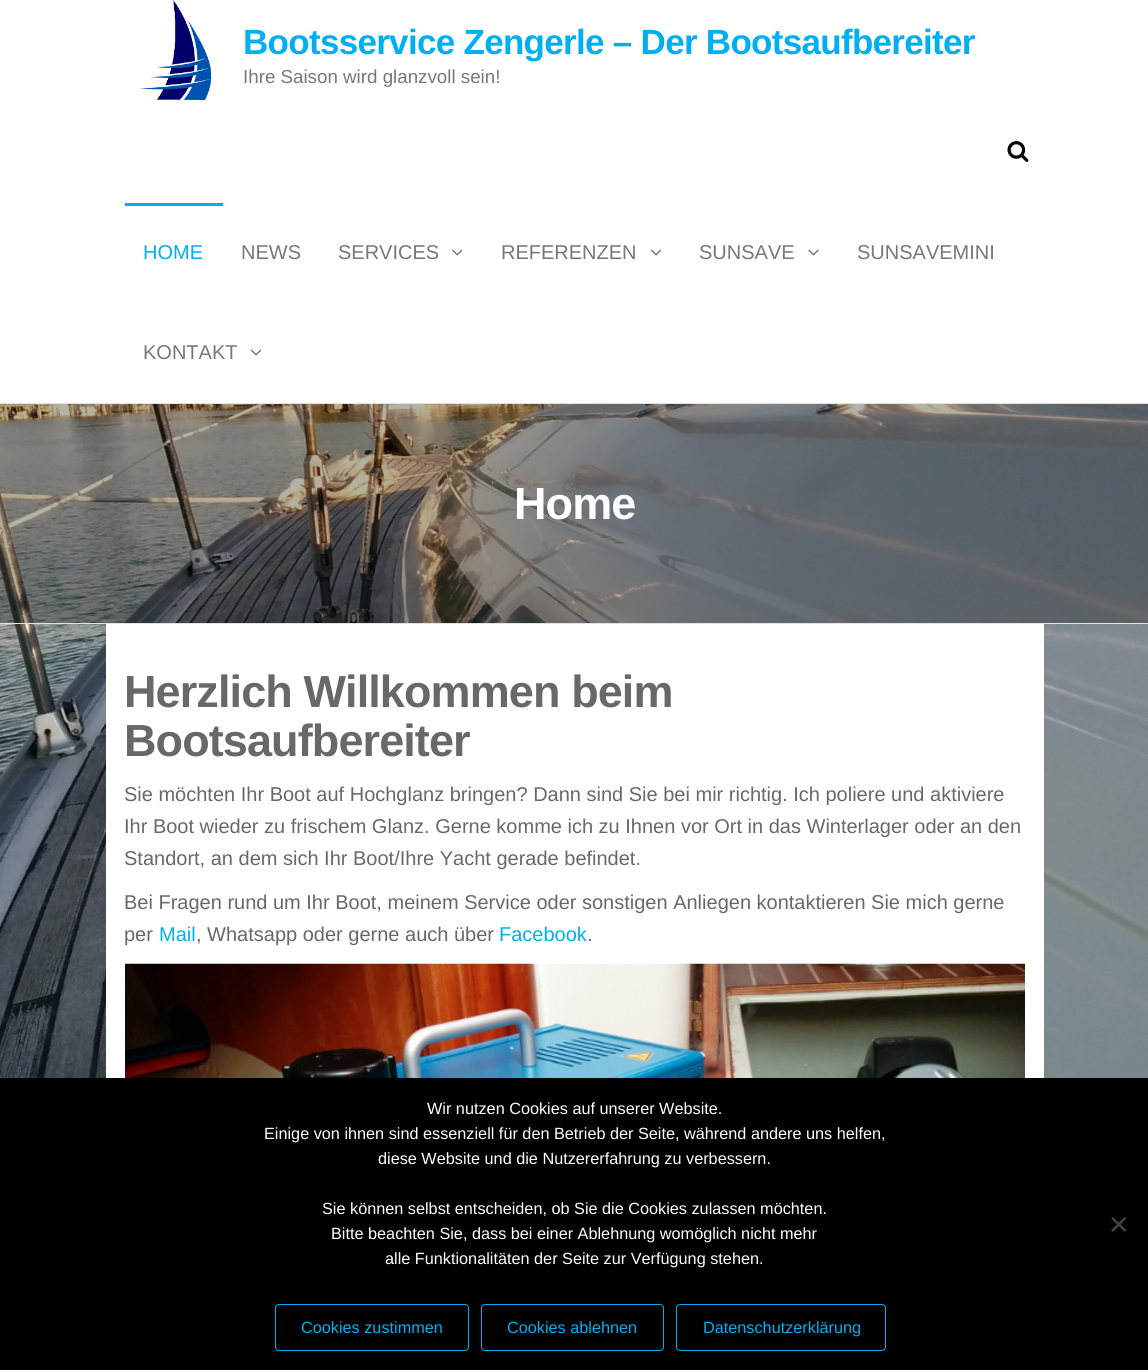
import math
import cairocffi as cairo

surface = cairo.ImageSurface(cairo.FORMAT_RGB24, 1148, 1370)
cr = cairo.Context(surface)
options = cairo.FontOptions()
options.set_hint_metrics(cairo.HINT_METRICS_OFF)
options.set_hint_style(cairo.HINT_STYLE_NONE)
cr.set_font_options(options)
cr.set_miter_limit(4)


def use_color(code):
    cr.set_source_rgb(*(v / 255 for v in bytes.fromhex(code[-6:])))


def spaced_text(x, y, s, letter, word):
    cr.move_to(x, y)
    for ch in s:
        cr.show_text(ch)
        cr.rel_move_to(letter + word * (ch == ' '), 0)


def round_rect(x, y, w, h, r):
    cr.new_sub_path()
    for i, (u, v) in enumerate([(x + w - r, y + h - r), (x + r, y + h - r), (x + r, y + r), (x + w - r, y + r)]):
        cr.arc(u, v, r, i * math.pi / 2, (i + 1) * math.pi / 2)
    cr.close_path()


def picture(path, x, y, w, h):
    cr.save()
    cr.set_source_surface(cairo.ImageSurface.create_from_png(path), x, y)
    cr.rectangle(x, y, w, h)
    cr.fill()
    cr.restore()


use_color("#ffffff")
cr.paint()
picture("img1.png", 0, 404, 1148, 674)
use_color("#e2e2e2")
cr.rectangle(0, 403, 1148, 1)
cr.fill()
picture("img2.png", 139, 0, 74, 100)
cr.select_font_face("Liberation Sans", cairo.FONT_SLANT_NORMAL, cairo.FONT_WEIGHT_BOLD)
cr.set_font_size(35)
use_color("#00aff2")
spaced_text(243, 54, "Bootsservice Zengerle – Der Bootsaufbereiter", -0.7, 0)
cr.select_font_face("Liberation Sans")
cr.set_font_size(18.75)
use_color("#777777")
cr.move_to(243, 83)
cr.show_text("Ihre Saison wird glanzvoll sein!")
picture("img3.png", 1007, 141, 22, 21)
use_color("#00aff2")
cr.rectangle(125, 203, 98, 3)
cr.fill()
cr.set_font_size(20)
cr.move_to(143, 259)
cr.show_text("HOME")
use_color("#777777")
cr.move_to(241, 259)
cr.show_text("NEWS")
cr.move_to(338, 259)
cr.show_text("SERVICES")
picture("img4.png", 452, 249, 11, 7)
cr.move_to(501, 259)
cr.show_text("REFERENZEN")
picture("img5.png", 650, 249, 12, 7)
cr.move_to(699, 259)
cr.show_text("SUNSAVE")
picture("img6.png", 808, 249, 11, 7)
cr.move_to(857, 259)
cr.show_text("SUNSAVEMINI")
cr.move_to(143, 359)
cr.show_text("KONTAKT")
picture("img5.png", 250, 349, 12, 7)
use_color("#e2e2e2")
cr.rectangle(0, 623, 1148, 1)
cr.fill()
cr.set_source_rgba(0, 0, 0, 0.3)
cr.rectangle(0, 404, 1148, 219)
cr.fill()
cr.select_font_face("Liberation Sans", cairo.FONT_SLANT_NORMAL, cairo.FONT_WEIGHT_BOLD)
cr.set_font_size(45)
use_color("#ffffff")
spaced_text(514, 519, "Home", -0.9, 0)
cr.rectangle(106, 624, 938, 454)
cr.fill()
use_color("#686868")
spaced_text(124, 707, "Herzlich Willkommen beim", -0.9, 0)
spaced_text(124, 756, "Bootsaufbereiter", -0.9, 0)
cr.select_font_face("Liberation Sans")
cr.set_font_size(20)
cr.move_to(124, 801)
cr.show_text("Sie möchten Ihr Boot auf Hochglanz bringen? Dann sind Sie bei mir richtig. Ich poliere und aktiviere")
cr.move_to(124, 833)
cr.show_text("Ihr Boot wieder zu frischem Glanz. Gerne komme ich zu Ihnen vor Ort in das Winterlager oder an den")
cr.move_to(124, 865)
cr.show_text("Standort, an dem sich Ihr Boot/Ihre Yacht gerade befindet.")
cr.move_to(124, 909)
cr.show_text("Bei Fragen rund um Ihr Boot, meinem Service oder sonstigen Anliegen kontaktieren Sie mich gerne")
cr.move_to(124, 941)
cr.show_text("per")
use_color("#00aff2")
cr.move_to(159, 941)
cr.show_text("Mail")
use_color("#686868")
cr.move_to(196, 941)
cr.show_text(", Whatsapp oder gerne auch über")
use_color("#00aff2")
cr.move_to(499, 941)
cr.show_text("Facebook")
use_color("#686868")
cr.move_to(587, 941)
cr.show_text(".")
picture("img7.png", 125, 963, 900, 115)
use_color("#000000")
cr.rectangle(0, 1078, 1148, 292)
cr.fill()
cr.set_font_size(16.25)
use_color("#ffffff")
cr.move_to(427, 1114)
cr.show_text("Wir nutzen Cookies auf unserer Website.")
cr.move_to(264, 1139)
cr.show_text("Einige von ihnen sind essenziell für den Betrieb der Seite, während andere uns helfen,")
cr.move_to(378, 1164)
cr.show_text("diese Website und die Nutzererfahrung zu verbessern.")
cr.move_to(322, 1214)
cr.show_text("Sie können selbst entscheiden, ob Sie die Cookies zulassen möchten.")
cr.move_to(331, 1239)
cr.show_text("Bitte beachten Sie, dass bei einer Ablehnung womöglich nicht mehr")
cr.move_to(385, 1264)
cr.show_text("alle Funktionalitäten der Seite zur Verfügung stehen.")
use_color("#404040")
cr.new_path()
cr.move_to(1124.5, 1217)
cr.line_to(1126.5, 1218.5)
cr.line_to(1113, 1232)
cr.line_to(1111, 1230)
cr.close_path()
cr.fill()
cr.new_path()
cr.move_to(1111, 1218.5)
cr.line_to(1113, 1217)
cr.line_to(1126.5, 1230)
cr.line_to(1124.5, 1232)
cr.close_path()
cr.fill()
round_rect(275.5, 1304.5, 193, 46, 3.5)
use_color("#00aff2")
cr.set_line_width(1)
cr.stroke()
cr.move_to(301, 1333)
cr.show_text("Cookies zustimmen")
round_rect(481.5, 1304.5, 182, 46, 3.5)
cr.stroke()
cr.move_to(507, 1333)
cr.show_text("Cookies ablehnen")
round_rect(676.5, 1304.5, 209, 46, 3.5)
cr.stroke()
cr.move_to(703, 1333)
cr.show_text("Datenschutzerklärung")
surface.write_to_png("result.png")
